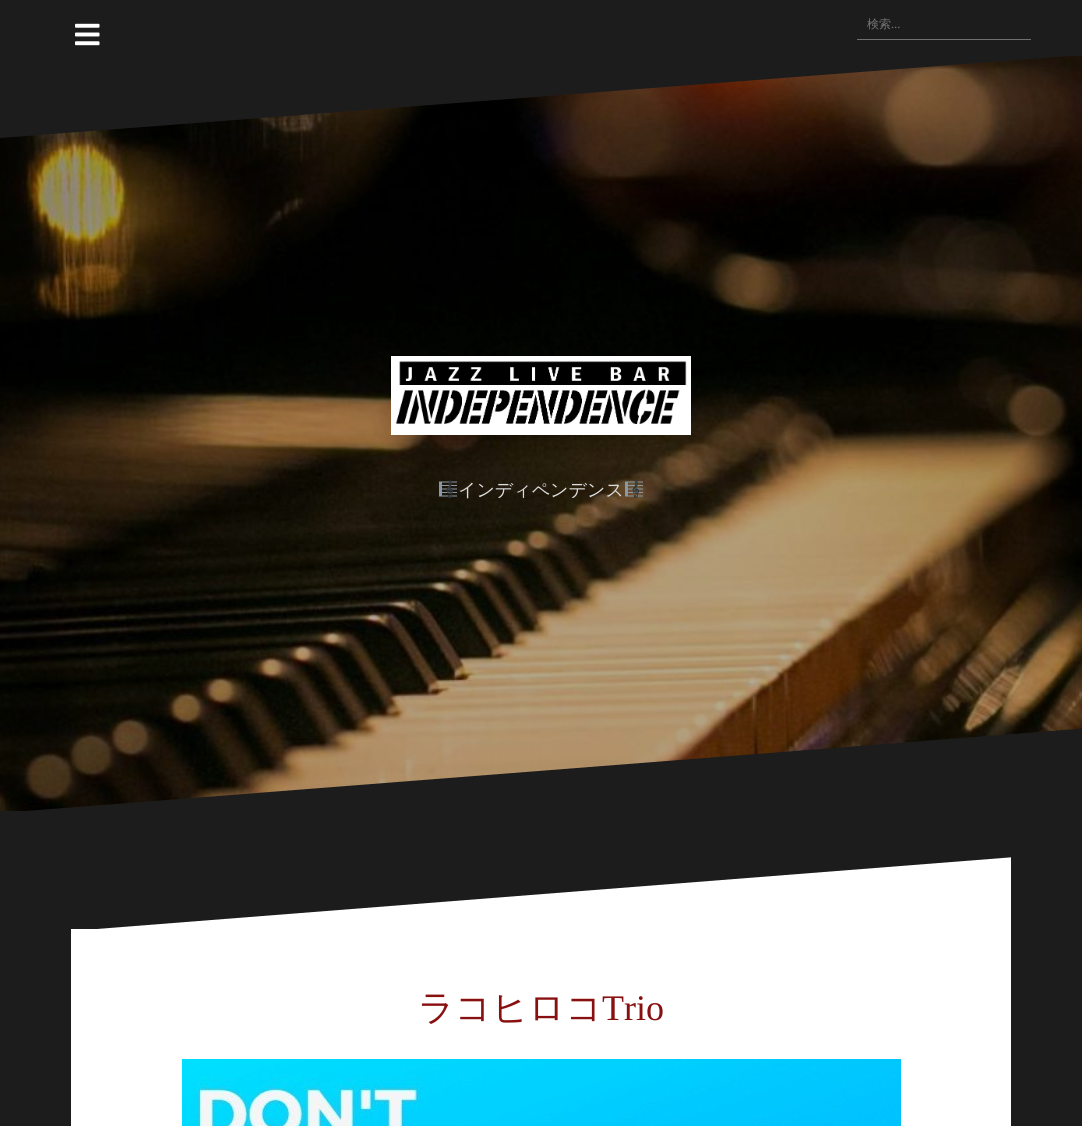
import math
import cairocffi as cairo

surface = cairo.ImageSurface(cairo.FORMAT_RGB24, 1082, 1126)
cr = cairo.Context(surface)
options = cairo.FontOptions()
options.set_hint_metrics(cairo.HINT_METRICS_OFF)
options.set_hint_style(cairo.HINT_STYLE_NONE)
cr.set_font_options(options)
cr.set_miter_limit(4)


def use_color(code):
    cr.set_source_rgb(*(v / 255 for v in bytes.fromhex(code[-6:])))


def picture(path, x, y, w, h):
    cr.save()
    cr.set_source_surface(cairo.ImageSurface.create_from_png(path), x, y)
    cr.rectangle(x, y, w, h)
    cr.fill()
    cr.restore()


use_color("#1c1c1c")
cr.paint()
picture("img1.png", 75, 23, 25, 23)
use_color("#6f6f6f")
cr.rectangle(857, 39, 174, 1)
cr.fill()
cr.select_font_face("WenQuanYi Zen Hei Medium")
cr.set_font_size(12)
use_color("#757575")
cr.move_to(867, 28)
cr.show_text("検索")
cr.select_font_face("Open Sans")
cr.move_to(891, 28)
cr.show_text("…")
picture("img2.png", 0, 56, 1082, 755)
use_color("#1c1c1c")
cr.new_path()
cr.move_to(0, 138)
cr.line_to(0, 55)
cr.line_to(1082, 55)
cr.fill()
picture("img3.png", 391, 356, 300, 79)
picture("img4.png", 439, 480, 18, 18)
cr.select_font_face("WenQuanYi Zen Hei Medium")
cr.set_font_size(18)
use_color("#dddddd")
cr.move_to(458, 496)
cr.show_text("インディペンデンス")
picture("img5.png", 625, 480, 18, 18)
use_color("#1c1c1c")
cr.new_path()
cr.move_to(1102, 727)
cr.line_to(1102, 813)
cr.line_to(0, 813)
cr.fill()
use_color("#ffffff")
cr.rectangle(71, 929, 940, 197)
cr.fill()
cr.save()
cr.rectangle(71, 856, 940, 74)
cr.clip()
cr.new_path()
cr.move_to(1028, 856)
cr.line_to(1028, 931)
cr.line_to(71, 931)
cr.fill()
cr.restore()
cr.set_font_size(36)
use_color("#891010")
cr.move_to(418, 1020)
cr.show_text("ラコヒロコ")
cr.select_font_face("Liberation Serif")
cr.move_to(602, 1020)
cr.show_text("Trio")
picture("img6.png", 182, 1059, 719, 67)
surface.write_to_png("result.png")
